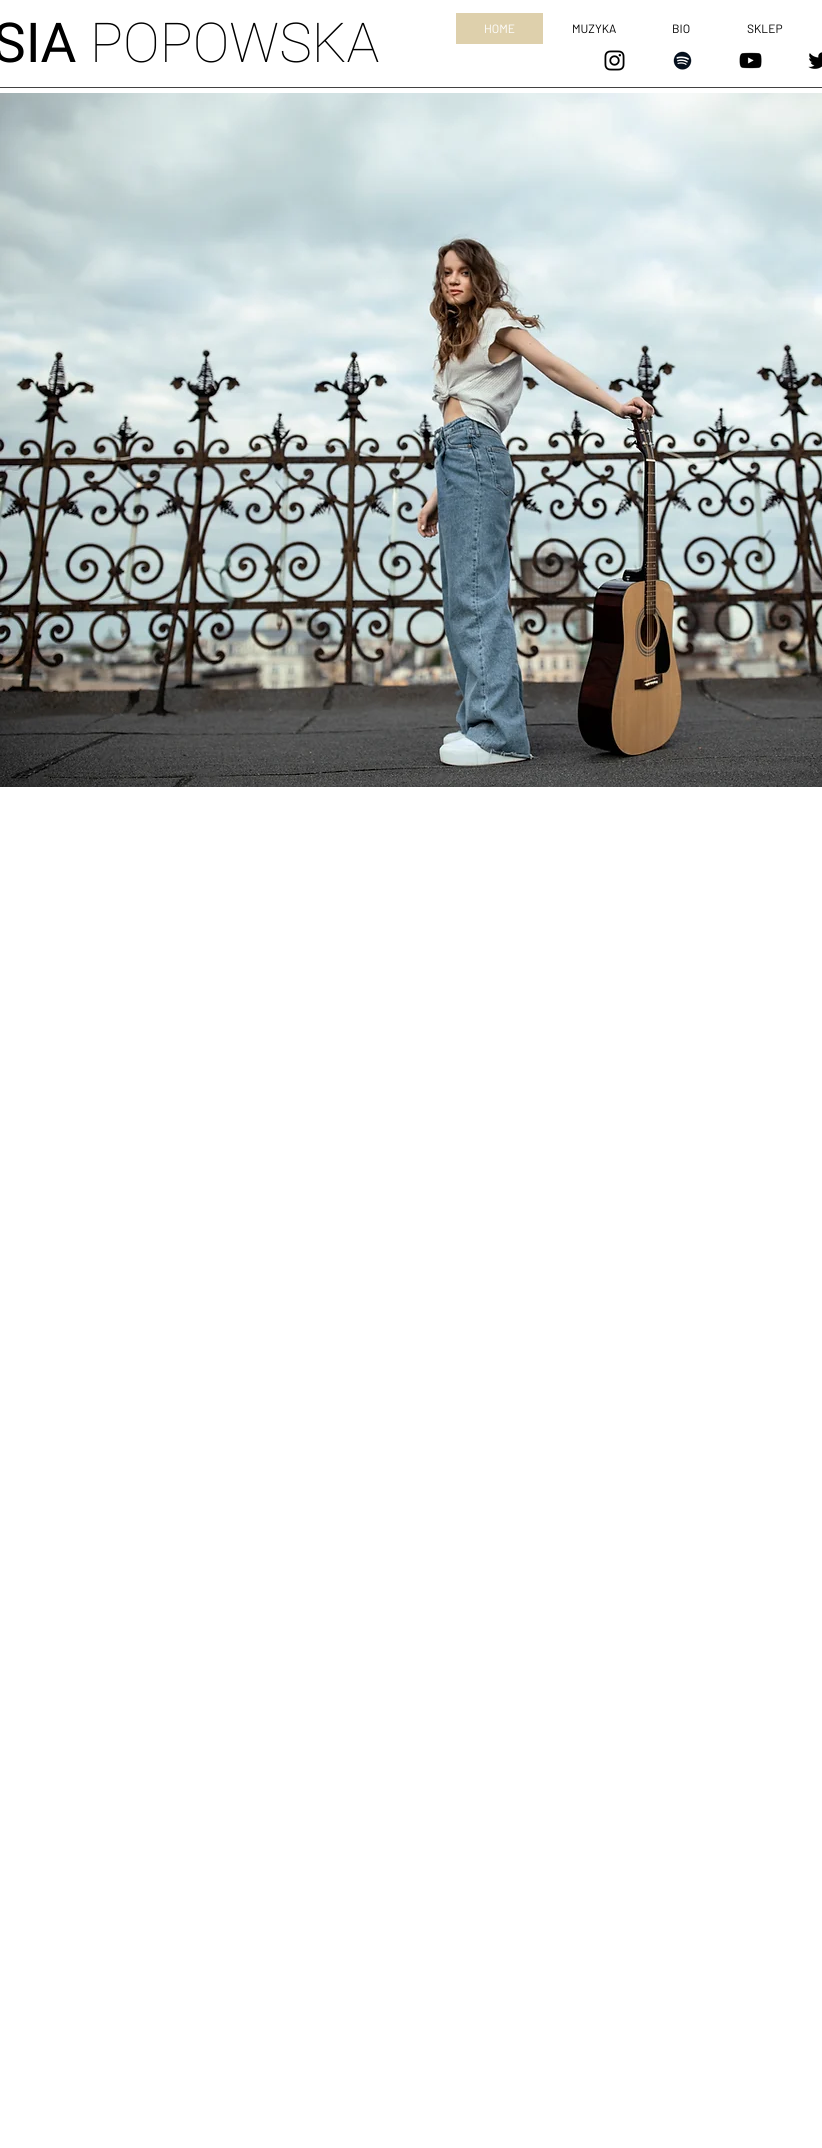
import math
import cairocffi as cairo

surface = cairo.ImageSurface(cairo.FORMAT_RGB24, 822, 2148)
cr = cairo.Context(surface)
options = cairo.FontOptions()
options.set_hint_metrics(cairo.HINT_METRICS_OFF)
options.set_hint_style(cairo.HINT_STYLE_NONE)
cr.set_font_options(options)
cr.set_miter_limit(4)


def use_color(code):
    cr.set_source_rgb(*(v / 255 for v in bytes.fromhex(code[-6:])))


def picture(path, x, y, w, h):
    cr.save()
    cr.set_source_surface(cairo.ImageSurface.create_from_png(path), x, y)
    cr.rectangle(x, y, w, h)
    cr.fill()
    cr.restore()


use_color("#ffffff")
cr.paint()
cr.select_font_face("Roboto")
cr.set_font_size(55)
use_color("#000000")
cr.move_to(-7, 62)
cr.show_text("SIA")
cr.select_font_face("Roboto Thin")
cr.move_to(90, 62)
cr.show_text("POPOWSKA")
use_color("#ded0ac")
cr.rectangle(456, 13, 87, 31)
cr.fill()
cr.select_font_face("Barlow")
cr.set_font_size(12)
use_color("#ffffff")
cr.move_to(484, 33)
cr.show_text("HOME")
use_color("#000000")
cr.move_to(572, 33)
cr.show_text("MUZYKA")
cr.move_to(672, 33)
cr.show_text("BIO")
cr.move_to(747, 33)
cr.show_text("SKLEP")
picture("img1.png", 604, 50, 21, 21)
picture("img2.png", 673, 51, 19, 19)
picture("img3.png", 739, 52, 23, 17)
picture("img4.png", 808, 52, 14, 17)
use_color("#424242")
cr.rectangle(0, 87, 822, 1)
cr.fill()
picture("img5.png", 0, 93, 822, 694)
surface.write_to_png("result.png")
